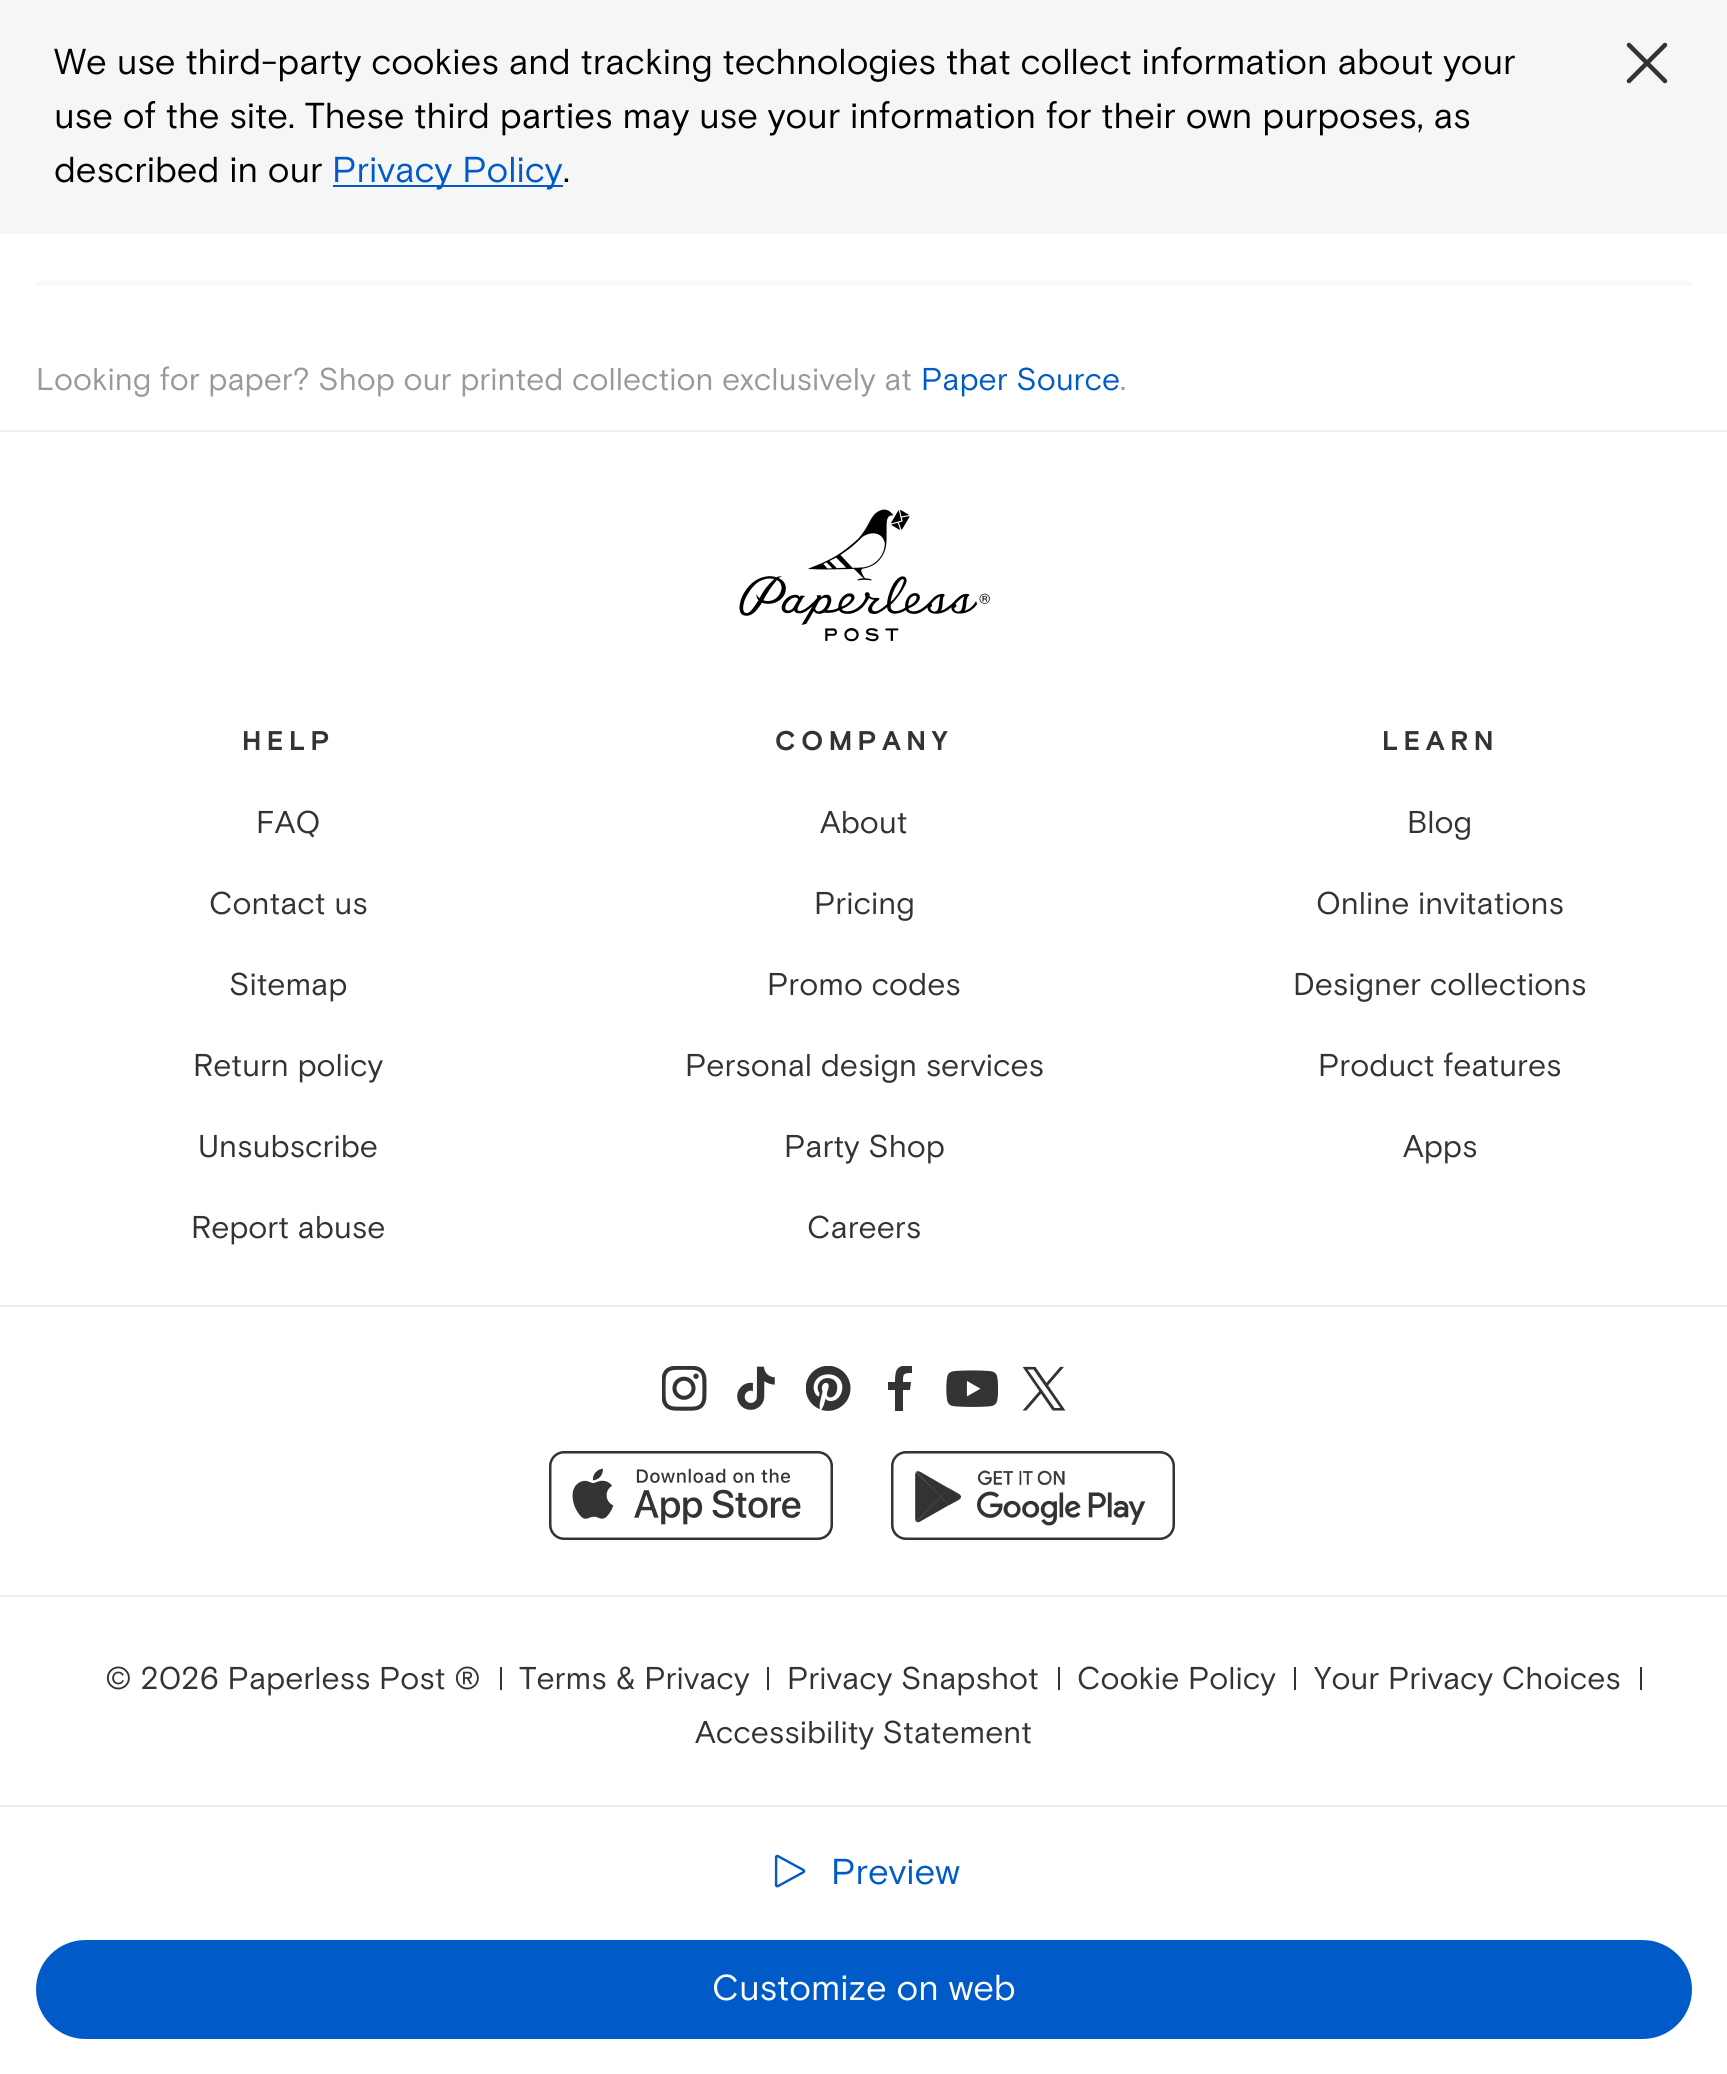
import math
import cairocffi as cairo

surface = cairo.ImageSurface(cairo.FORMAT_RGB24, 1727, 2074)
cr = cairo.Context(surface)
options = cairo.FontOptions()
options.set_hint_metrics(cairo.HINT_METRICS_OFF)
options.set_hint_style(cairo.HINT_STYLE_NONE)
cr.set_font_options(options)
cr.set_miter_limit(4)


def use_color(code):
    cr.set_source_rgb(*(v / 255 for v in bytes.fromhex(code[-6:])))


def spaced_text(x, y, s, letter, word):
    cr.move_to(x, y)
    for ch in s:
        cr.show_text(ch)
        cr.rel_move_to(letter + word * (ch == ' '), 0)


def round_rect(x, y, w, h, r):
    cr.new_sub_path()
    for i, (u, v) in enumerate([(x + w - r, y + h - r), (x + r, y + h - r), (x + r, y + r), (x + w - r, y + r)]):
        cr.arc(u, v, r, i * math.pi / 2, (i + 1) * math.pi / 2)
    cr.close_path()


def picture(path, x, y, w, h):
    cr.save()
    cr.set_source_surface(cairo.ImageSurface.create_from_png(path), x, y)
    cr.rectangle(x, y, w, h)
    cr.fill()
    cr.restore()


use_color("#ffffff")
cr.paint()
use_color("#f6f6f6")
cr.rectangle(0, 0, 1727, 234)
cr.fill()
cr.select_font_face("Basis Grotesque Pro")
cr.set_font_size(36)
use_color("#000000")
cr.move_to(54, 74)
cr.show_text("We use third-party cookies and tracking technologies that collect information about your")
cr.move_to(54, 128)
cr.show_text("use of the site. These third parties may use your information for their own purposes, as")
cr.move_to(54, 182)
cr.show_text("described in our")
use_color("#005ac8")
cr.rectangle(333, 185, 230, 2)
cr.fill()
cr.move_to(332, 182)
cr.show_text("Privacy Policy")
use_color("#000000")
cr.move_to(563, 182)
cr.show_text(".")
cr.new_path()
cr.move_to(1629, 81)
cr.line_to(1665, 45)
cr.move_to(1629, 45)
cr.line_to(1665, 81)
use_color("#333333")
cr.set_line_width(4.5)
cr.set_line_cap(cairo.LINE_CAP_ROUND)
cr.set_line_join(cairo.LINE_JOIN_ROUND)
cr.stroke()
use_color("#f9f9f9")
cr.rectangle(36, 281, 1656, 5)
cr.fill()
cr.set_font_size(31.5)
use_color("#999999")
cr.move_to(36, 390)
cr.show_text("Looking for paper? Shop our printed collection exclusively at")
use_color("#005ac8")
cr.move_to(921, 390)
cr.show_text("Paper Source")
use_color("#999999")
cr.move_to(1120, 390)
cr.show_text(".")
use_color("#eeeeee")
cr.rectangle(0, 1805, 1727, 2)
cr.fill()
picture("img1.png", 774, 1854, 32, 34)
cr.set_font_size(36)
use_color("#005ac8")
cr.move_to(831, 1884)
cr.show_text("Preview")
round_rect(36, 1940, 1656, 99, 49.5)
cr.fill()
use_color("#ffffff")
cr.move_to(712, 2000)
cr.show_text("Customize on web")
use_color("#eeeeee")
cr.rectangle(0, 430, 1727, 2)
cr.fill()
picture("img2.png", 739, 509, 251, 133)
cr.select_font_face("Basis Grotesque Pro", cairo.FONT_SLANT_NORMAL, cairo.FONT_WEIGHT_BOLD)
cr.set_font_size(27)
use_color("#333333")
spaced_text(242, 750, "HELP", 5.5, 0)
cr.select_font_face("Basis Grotesque Pro")
cr.set_font_size(31.5)
cr.move_to(256, 833)
cr.show_text("FAQ")
cr.move_to(209, 914)
cr.show_text("Contact us")
cr.move_to(229, 995)
cr.show_text("Sitemap")
cr.move_to(193, 1076)
cr.show_text("Return policy")
cr.move_to(198, 1157)
cr.show_text("Unsubscribe")
cr.move_to(191, 1238)
cr.show_text("Report abuse")
cr.select_font_face("Basis Grotesque Pro", cairo.FONT_SLANT_NORMAL, cairo.FONT_WEIGHT_BOLD)
cr.set_font_size(27)
spaced_text(775, 750, "COMPANY", 5.5, 0)
cr.select_font_face("Basis Grotesque Pro")
cr.set_font_size(31.5)
cr.move_to(820, 833)
cr.show_text("About")
cr.move_to(814, 914)
cr.show_text("Pricing")
cr.move_to(767, 995)
cr.show_text("Promo codes")
cr.move_to(685, 1076)
cr.show_text("Personal design services")
cr.move_to(784, 1157)
cr.show_text("Party Shop")
cr.move_to(807, 1238)
cr.show_text("Careers")
cr.select_font_face("Basis Grotesque Pro", cairo.FONT_SLANT_NORMAL, cairo.FONT_WEIGHT_BOLD)
cr.set_font_size(27)
spaced_text(1382, 750, "LEARN", 5.5, 0)
cr.select_font_face("Basis Grotesque Pro")
cr.set_font_size(31.5)
cr.move_to(1407, 833)
cr.show_text("Blog")
cr.move_to(1316, 914)
cr.show_text("Online invitations")
cr.move_to(1293, 995)
cr.show_text("Designer collections")
cr.move_to(1318, 1076)
cr.show_text("Product features")
cr.move_to(1403, 1157)
cr.show_text("Apps")
use_color("#eeeeee")
cr.rectangle(0, 1305, 1727, 2)
cr.fill()
picture("img3.png", 662, 1366, 45, 45)
picture("img4.png", 737, 1366, 38, 44)
picture("img5.png", 806, 1366, 45, 45)
cr.save()
cr.rectangle(878, 1366, 45, 45)
cr.clip()
use_color("#333333")
cr.new_path()
cr.move_to(903, 1411)
cr.line_to(903, 1390)
cr.line_to(910, 1390)
cr.line_to(911, 1382)
cr.line_to(903, 1382)
cr.curve_to(903, 1374, 903, 1373, 912, 1373)
cr.line_to(912, 1366)
cr.curve_to(897, 1364, 895, 1369, 895, 1382)
cr.line_to(888, 1382)
cr.line_to(888, 1390)
cr.line_to(895, 1390)
cr.line_to(895, 1411)
cr.close_path()
cr.fill()
cr.restore()
picture("img6.png", 946, 1370, 52, 37)
picture("img7.png", 1022, 1366, 44, 45)
picture("img8.png", 549, 1451, 284, 89)
picture("img9.png", 891, 1451, 284, 89)
cr.rectangle(0, 1595, 1727, 2)
cr.fill()
use_color("#333333")
cr.move_to(105, 1689)
cr.show_text("© 2026 Paperless Post ®")
cr.rectangle(500, 1667, 2, 23)
cr.fill()
cr.move_to(519, 1689)
cr.show_text("Terms & Privacy")
cr.rectangle(767, 1667, 2, 23)
cr.fill()
cr.move_to(787, 1689)
cr.show_text("Privacy Snapshot")
cr.rectangle(1058, 1667, 2, 23)
cr.fill()
cr.move_to(1077, 1689)
cr.show_text("Cookie Policy")
cr.rectangle(1294, 1667, 2, 23)
cr.fill()
cr.move_to(1314, 1689)
cr.show_text("Your Privacy Choices")
cr.rectangle(1640, 1667, 2, 23)
cr.fill()
cr.move_to(695, 1743)
cr.show_text("Accessibility Statement")
surface.write_to_png("result.png")
